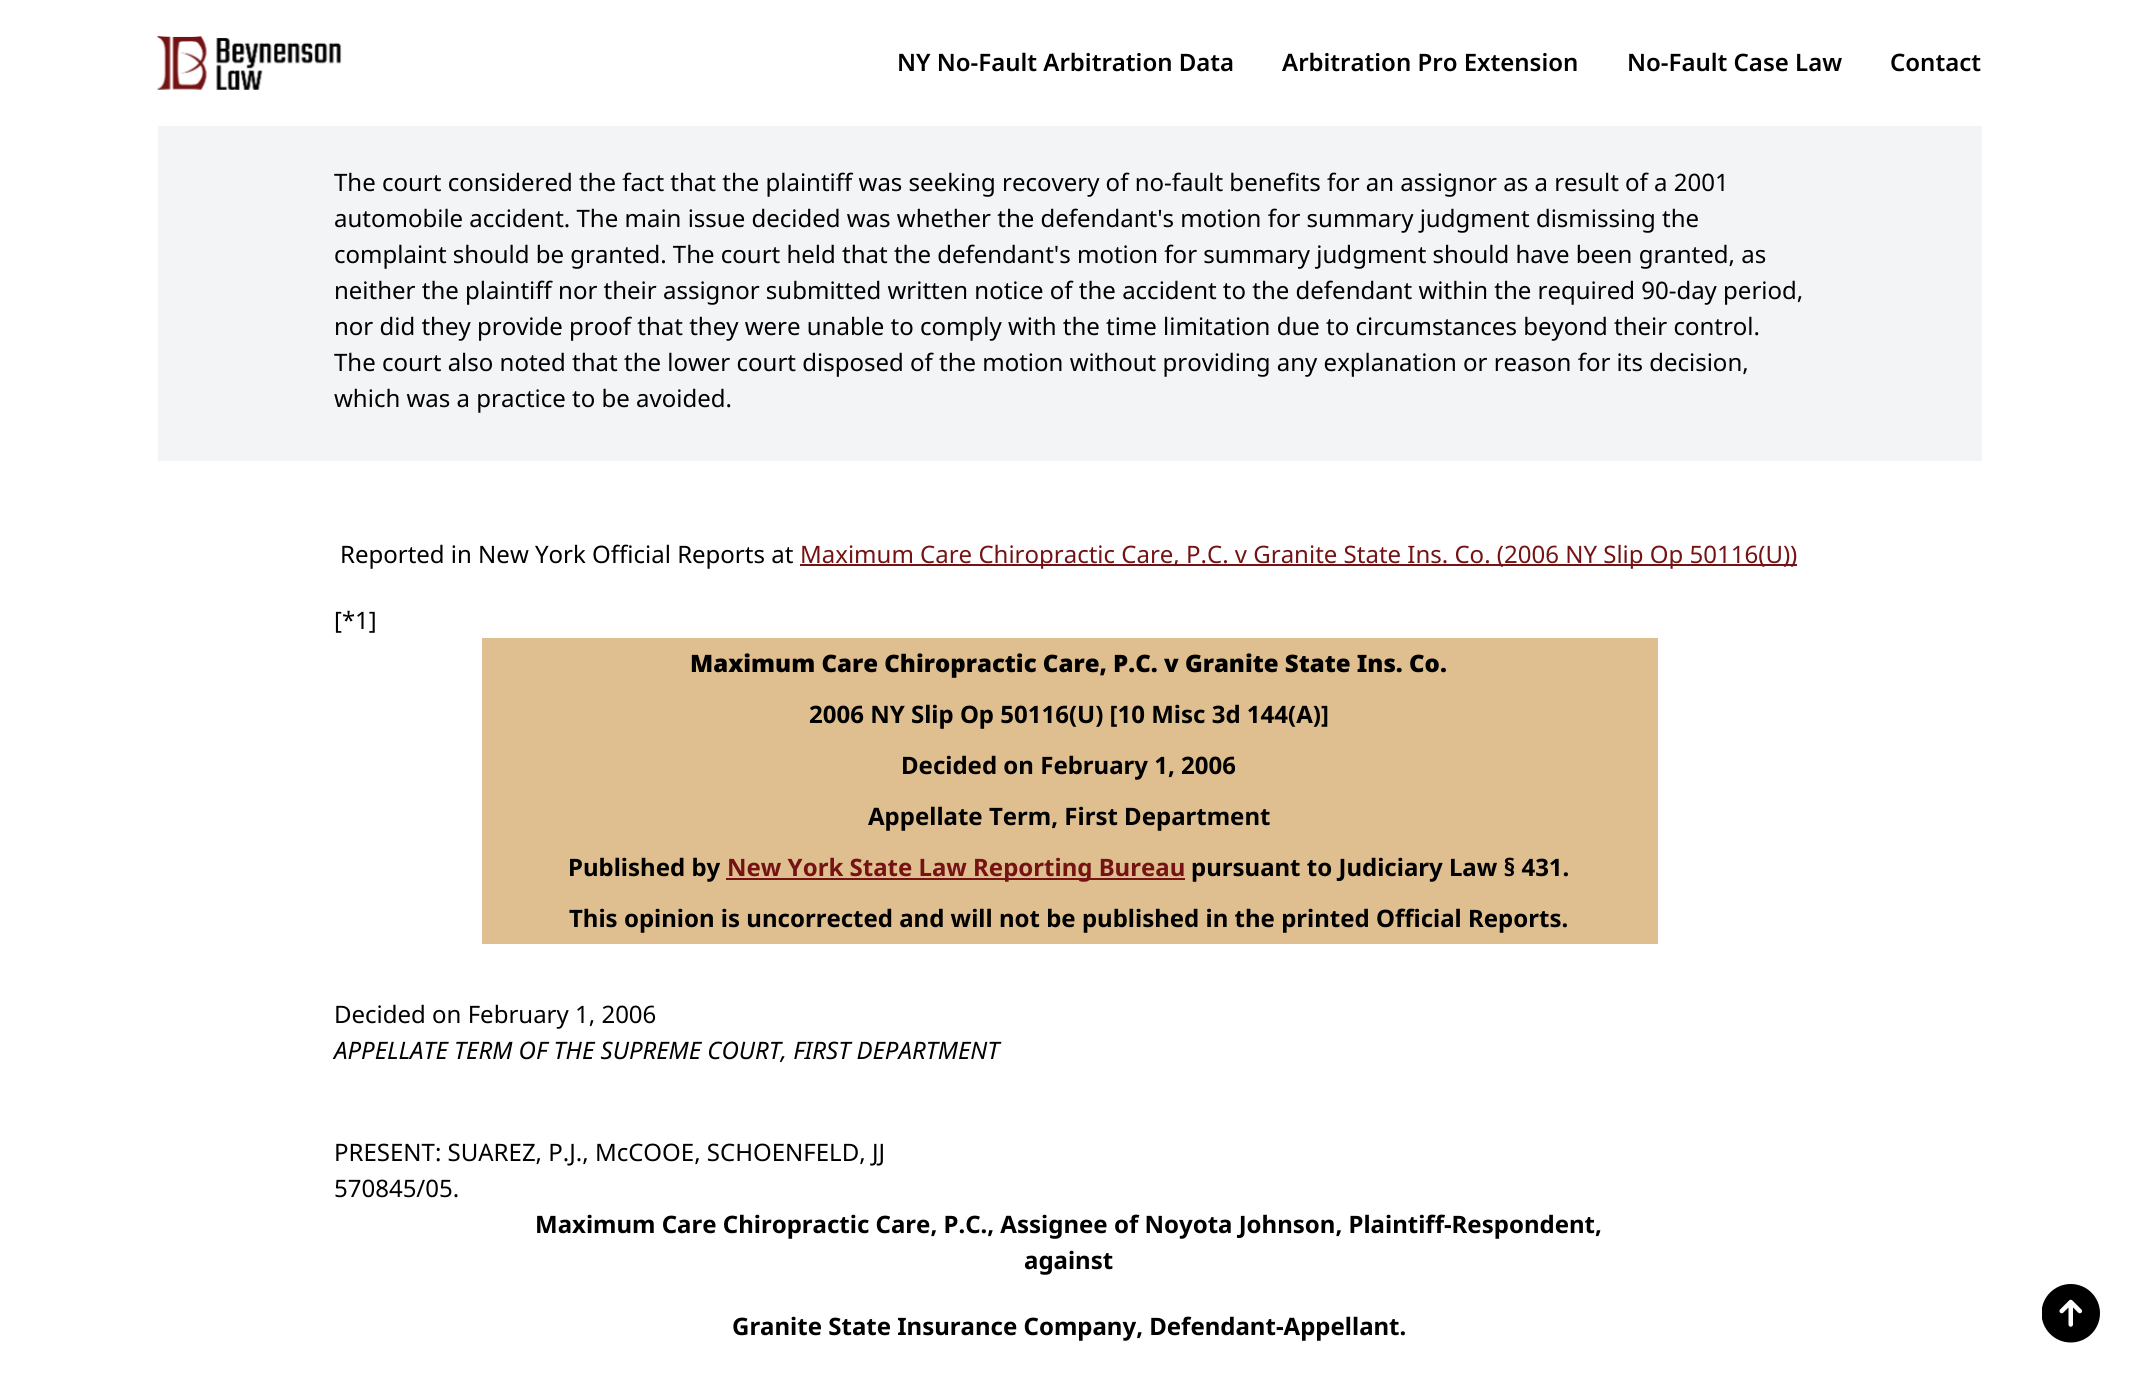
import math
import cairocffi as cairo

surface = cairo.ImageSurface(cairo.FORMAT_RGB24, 2137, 1380)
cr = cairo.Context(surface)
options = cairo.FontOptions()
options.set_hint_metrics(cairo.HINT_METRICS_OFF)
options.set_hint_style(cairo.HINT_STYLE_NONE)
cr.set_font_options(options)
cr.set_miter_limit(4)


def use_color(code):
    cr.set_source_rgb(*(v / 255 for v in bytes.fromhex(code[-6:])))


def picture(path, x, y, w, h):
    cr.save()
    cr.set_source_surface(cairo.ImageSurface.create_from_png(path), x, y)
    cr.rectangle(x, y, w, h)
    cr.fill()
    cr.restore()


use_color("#ffffff")
cr.paint()
picture("img1.png", 157, 36, 185, 54)
cr.select_font_face("Noto Sans SemiBold")
cr.set_font_size(24)
use_color("#000000")
cr.move_to(897, 71)
cr.show_text("NY No-Fault Arbitration Data")
cr.move_to(1282, 71)
cr.show_text("Arbitration Pro Extension")
cr.move_to(1627, 71)
cr.show_text("No-Fault Case Law")
cr.move_to(1890, 71)
cr.show_text("Contact")
use_color("#f3f4f6")
cr.rectangle(158, 126, 1824, 335)
cr.fill()
cr.select_font_face("Noto Sans")
use_color("#000000")
cr.move_to(334, 191)
cr.show_text("The court considered the fact that the plaintiff was seeking recovery of no-fault benefits for an assignor as a result of a 2001")
cr.move_to(334, 227)
cr.show_text("automobile accident. The main issue decided was whether the defendant's motion for summary judgment dismissing the")
cr.move_to(334, 263)
cr.show_text("complaint should be granted. The court held that the defendant's motion for summary judgment should have been granted, as")
cr.move_to(334, 299)
cr.show_text("neither the plaintiff nor their assignor submitted written notice of the accident to the defendant within the required 90-day period,")
cr.move_to(334, 335)
cr.show_text("nor did they provide proof that they were unable to comply with the time limitation due to circumstances beyond their control.")
cr.move_to(334, 371)
cr.show_text("The court also noted that the lower court disposed of the motion without providing any explanation or reason for its decision,")
cr.move_to(334, 407)
cr.show_text("which was a practice to be avoided.")
cr.move_to(340, 563)
cr.show_text("Reported in New York Official Reports at")
use_color("#751314")
cr.rectangle(800, 564, 997, 2)
cr.fill()
cr.move_to(800, 563)
cr.show_text("Maximum Care Chiropractic Care, P.C. v Granite State Ins. Co. (2006 NY Slip Op 50116(U))")
use_color("#000000")
cr.move_to(334, 629)
cr.show_text("[*1]")
use_color("#dfbf8f")
cr.rectangle(482, 638, 1176, 306)
cr.fill()
cr.select_font_face("Noto Sans Black")
use_color("#000000")
cr.move_to(690, 672)
cr.show_text("Maximum Care Chiropractic Care, P.C. v Granite State Ins. Co.")
cr.select_font_face("Noto Sans", cairo.FONT_SLANT_NORMAL, cairo.FONT_WEIGHT_BOLD)
cr.move_to(809, 723)
cr.show_text("2006 NY Slip Op 50116(U) [10 Misc 3d 144(A)]")
cr.move_to(901, 774)
cr.show_text("Decided on February 1, 2006")
cr.move_to(868, 825)
cr.show_text("Appellate Term, First Department")
cr.move_to(568, 876)
cr.show_text("Published by")
use_color("#751314")
cr.rectangle(726, 878, 459, 2)
cr.fill()
cr.move_to(727, 876)
cr.show_text("New York State Law Reporting Bureau")
use_color("#000000")
cr.move_to(1191, 876)
cr.show_text("pursuant to Judiciary Law § 431.")
cr.move_to(569, 927)
cr.show_text("This opinion is uncorrected and will not be published in the printed Official Reports.")
cr.select_font_face("Noto Sans")
cr.move_to(334, 1023)
cr.show_text("Decided on February 1, 2006")
cr.select_font_face("Noto Sans", cairo.FONT_SLANT_ITALIC)
cr.move_to(334, 1059)
cr.show_text("APPELLATE TERM OF THE SUPREME COURT, FIRST DEPARTMENT")
cr.select_font_face("Noto Sans")
cr.move_to(334, 1161)
cr.show_text("PRESENT: SUAREZ, P.J., McCOOE, SCHOENFELD, JJ")
cr.move_to(334, 1197)
cr.show_text("570845/05.")
cr.select_font_face("Noto Sans", cairo.FONT_SLANT_NORMAL, cairo.FONT_WEIGHT_BOLD)
cr.move_to(535, 1233)
cr.show_text("Maximum Care Chiropractic Care, P.C., Assignee of Noyota Johnson, Plaintiff-Respondent,")
cr.move_to(1024, 1269)
cr.show_text("against")
cr.move_to(732, 1335)
cr.show_text("Granite State Insurance Company, Defendant-Appellant.")
picture("img2.png", 2042, 1284, 58, 59)
surface.write_to_png("result.png")
